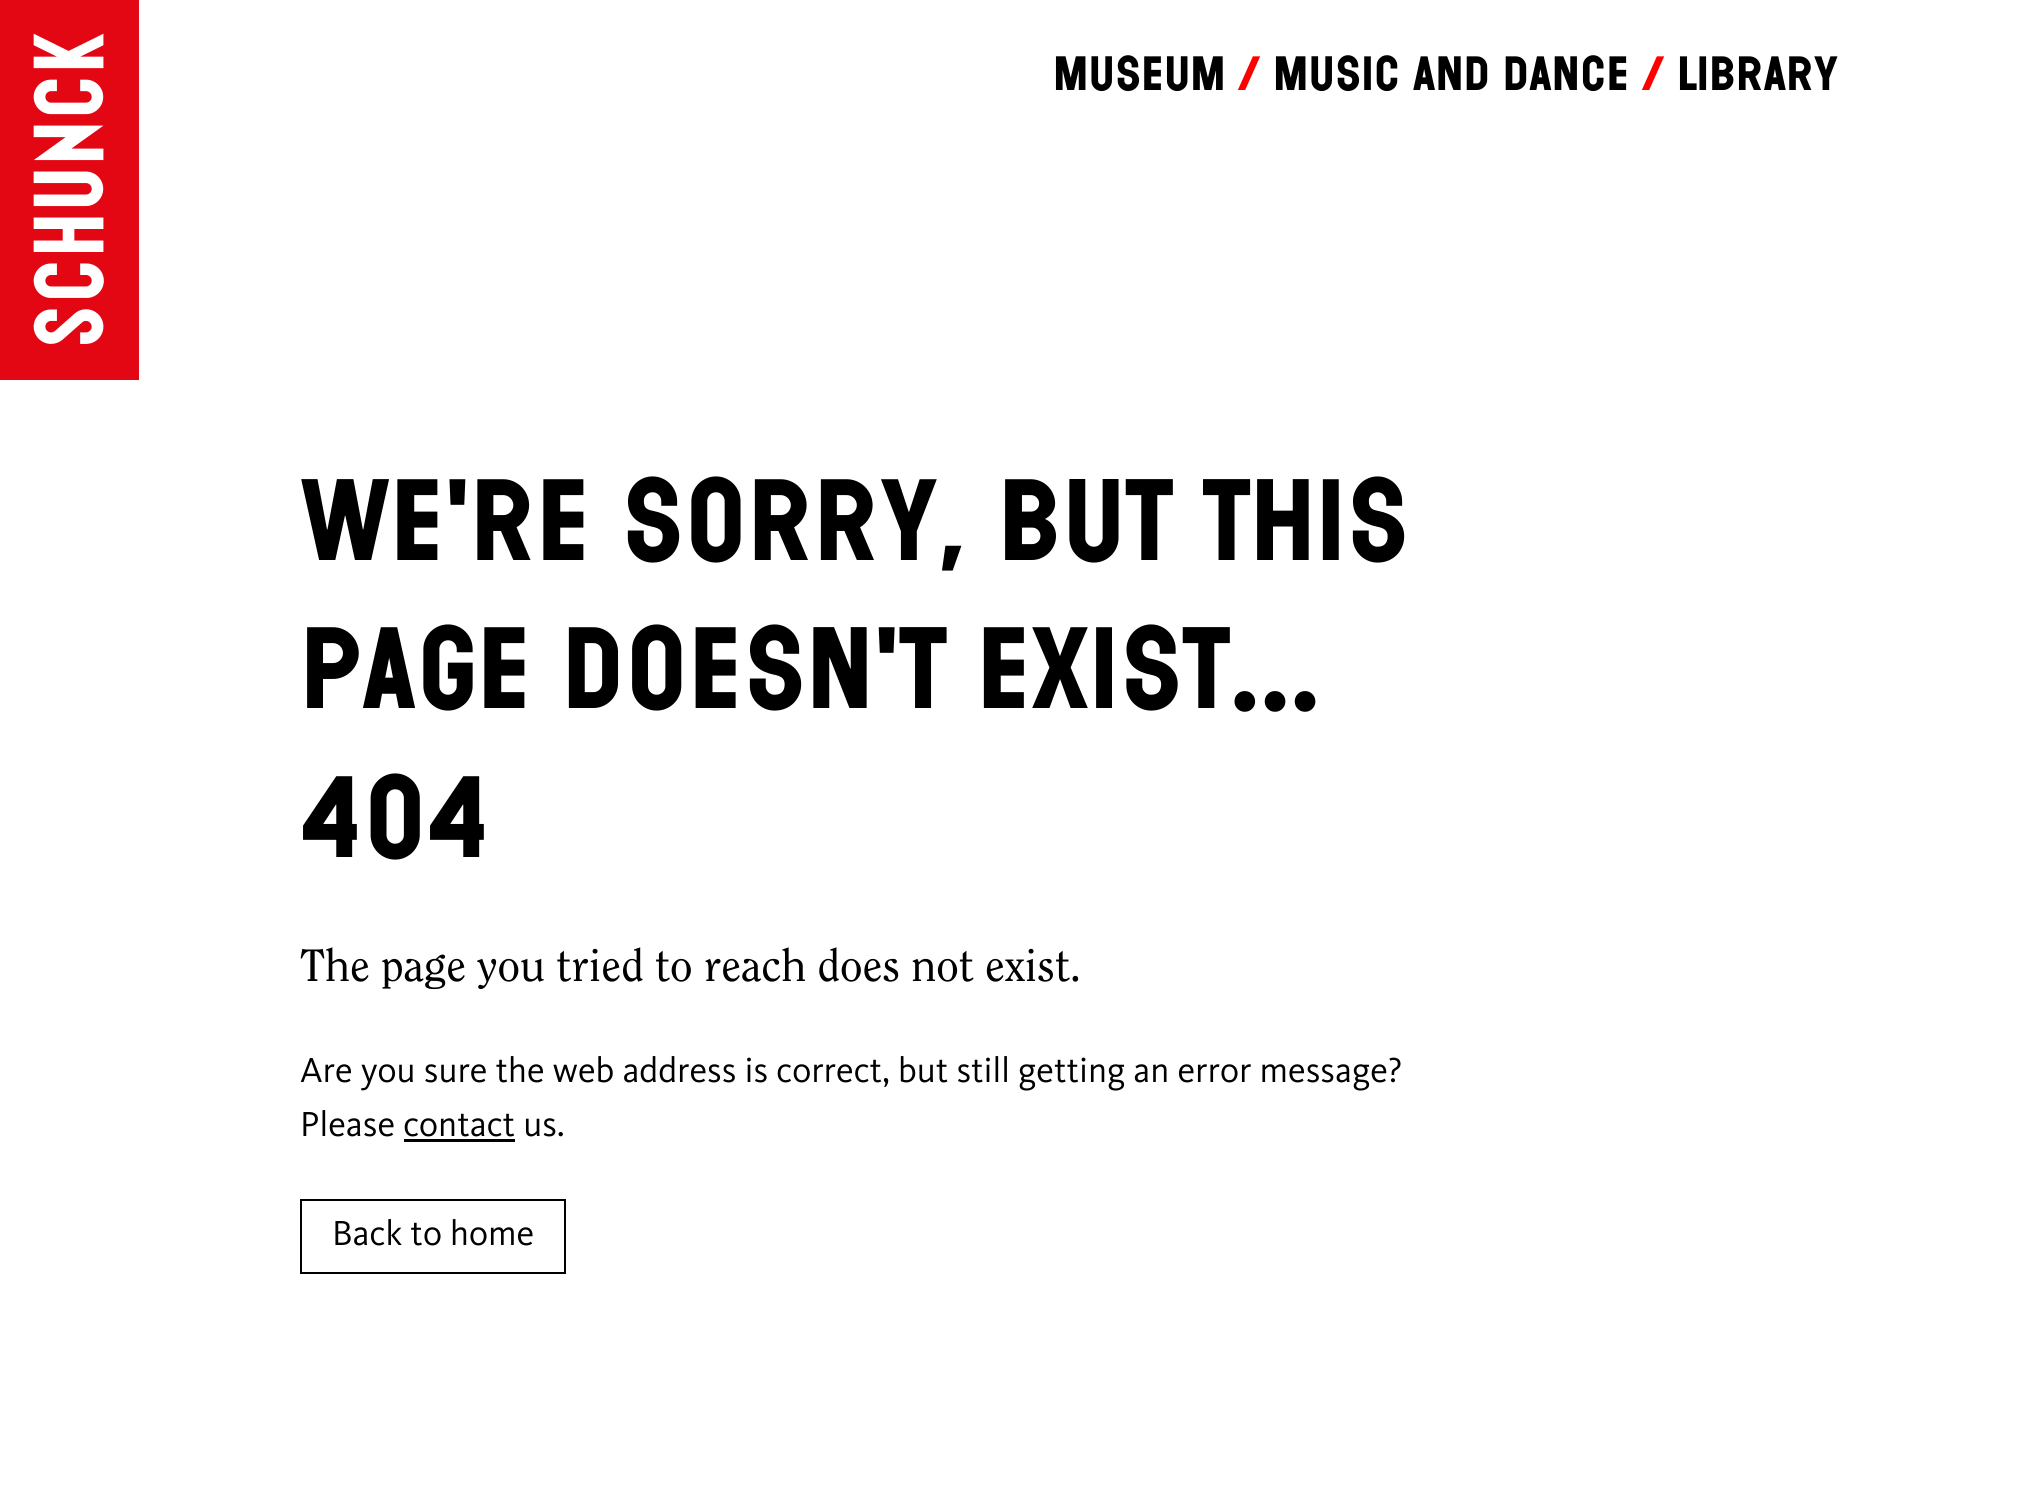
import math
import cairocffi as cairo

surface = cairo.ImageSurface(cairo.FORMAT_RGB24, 2017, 1486)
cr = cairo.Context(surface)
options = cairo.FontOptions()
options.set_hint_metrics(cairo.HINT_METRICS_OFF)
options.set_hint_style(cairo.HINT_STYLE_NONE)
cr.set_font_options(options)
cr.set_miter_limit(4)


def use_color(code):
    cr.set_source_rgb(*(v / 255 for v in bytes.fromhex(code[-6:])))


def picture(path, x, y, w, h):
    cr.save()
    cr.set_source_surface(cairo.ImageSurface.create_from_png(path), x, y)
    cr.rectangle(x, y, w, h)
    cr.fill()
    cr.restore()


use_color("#ffffff")
cr.paint()
picture("img1.png", 0, 0, 139, 380)
cr.select_font_face("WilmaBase")
cr.set_font_size(45)
use_color("#000000")
cr.move_to(1053, 90)
cr.show_text("Museum")
use_color("#ff0000")
cr.move_to(1236, 90)
cr.show_text("/")
use_color("#000000")
cr.move_to(1273, 90)
cr.show_text("Music and dance")
use_color("#ff0000")
cr.move_to(1640, 90)
cr.show_text("/")
use_color("#000000")
cr.move_to(1677, 90)
cr.show_text("Library")
cr.set_font_size(108)
cr.move_to(300, 560)
cr.show_text("We're sorry, but this")
cr.move_to(300, 708)
cr.show_text("page doesn't exist...")
cr.move_to(300, 857)
cr.show_text("404")
cr.select_font_face("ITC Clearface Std")
cr.set_font_size(45)
cr.move_to(300, 981)
cr.show_text("The page you tried to reach does not exist.")
cr.select_font_face("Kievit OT")
cr.set_font_size(36)
cr.move_to(300, 1082)
cr.show_text("Are you sure the web address is correct, but still getting an error message?")
cr.move_to(300, 1136)
cr.show_text("Please contact us.")
cr.rectangle(404, 1139, 111, 3)
cr.fill()
cr.rectangle(301, 1200, 264, 73)
cr.stroke()
cr.move_to(332, 1245)
cr.show_text("Back to home")
surface.write_to_png("result.png")
